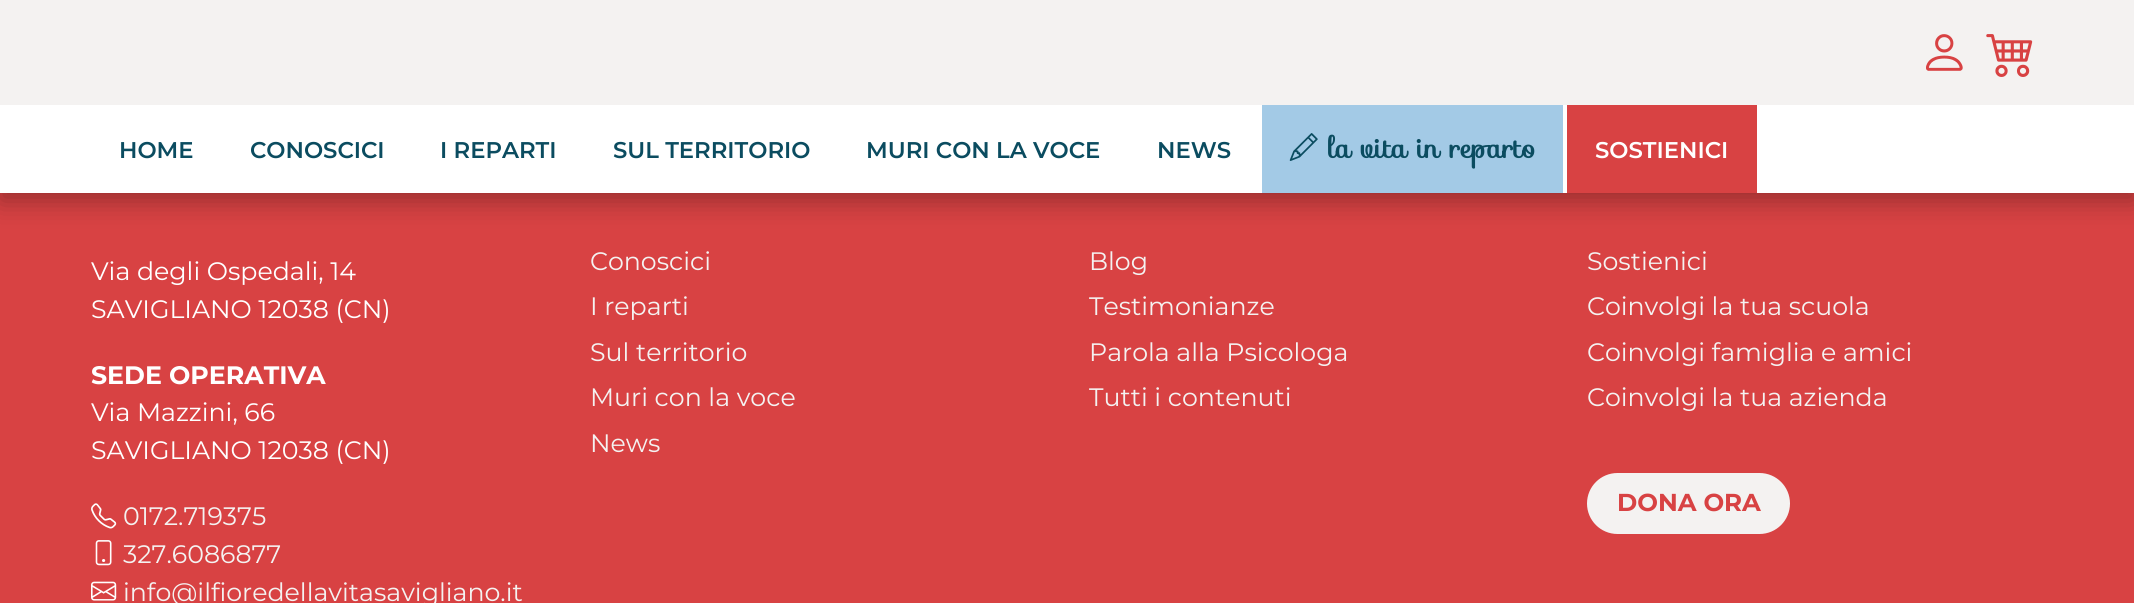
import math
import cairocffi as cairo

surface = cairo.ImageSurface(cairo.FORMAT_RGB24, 2134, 603)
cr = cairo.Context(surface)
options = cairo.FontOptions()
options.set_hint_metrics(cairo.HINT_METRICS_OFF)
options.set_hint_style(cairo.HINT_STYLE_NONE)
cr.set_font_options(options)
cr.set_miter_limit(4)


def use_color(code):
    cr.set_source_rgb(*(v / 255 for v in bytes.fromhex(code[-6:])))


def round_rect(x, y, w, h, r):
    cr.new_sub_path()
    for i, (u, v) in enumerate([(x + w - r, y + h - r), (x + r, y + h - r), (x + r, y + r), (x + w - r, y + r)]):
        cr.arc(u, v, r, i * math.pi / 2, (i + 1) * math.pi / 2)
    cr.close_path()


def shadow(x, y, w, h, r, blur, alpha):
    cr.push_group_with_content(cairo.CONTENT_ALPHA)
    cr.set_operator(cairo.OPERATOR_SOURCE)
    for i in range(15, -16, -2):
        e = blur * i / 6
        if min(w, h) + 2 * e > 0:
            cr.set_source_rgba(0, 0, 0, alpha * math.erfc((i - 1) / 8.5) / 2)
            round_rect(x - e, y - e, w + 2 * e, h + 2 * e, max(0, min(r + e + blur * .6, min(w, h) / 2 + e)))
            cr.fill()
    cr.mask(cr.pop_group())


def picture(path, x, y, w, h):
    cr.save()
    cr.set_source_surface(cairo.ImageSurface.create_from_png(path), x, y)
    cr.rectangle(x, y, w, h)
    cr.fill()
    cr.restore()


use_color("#d84243")
cr.paint()
use_color("#000000")
shadow(0, 9, 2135, 192, 0, 13, 0.3)
use_color("#f4f2f1")
cr.rectangle(0, 0, 2134, 105)
cr.fill()
picture("img1.png", 1926, 34, 37, 37)
picture("img2.png", 1986, 34, 47, 43)
use_color("#ffffff")
cr.rectangle(0, 105, 2134, 88)
cr.fill()
cr.select_font_face("Montserrat SemiBold")
cr.set_font_size(22.75)
use_color("#0b4c60")
cr.move_to(119, 158)
cr.show_text("HOME")
cr.move_to(250, 158)
cr.show_text("CONOSCICI")
cr.move_to(440, 158)
cr.show_text("I REPARTI")
cr.move_to(613, 158)
cr.show_text("SUL TERRITORIO")
cr.move_to(866, 158)
cr.show_text("MURI CON LA VOCE")
cr.move_to(1157, 158)
cr.show_text("NEWS")
use_color("#a3cae6")
cr.rectangle(1262, 105, 301, 88)
cr.fill()
picture("img3.png", 1289, 133, 29, 28)
cr.select_font_face("Sofia", cairo.FONT_SLANT_NORMAL, cairo.FONT_WEIGHT_BOLD)
cr.set_font_size(28)
use_color("#0b4c60")
cr.move_to(1328, 158)
cr.show_text("la vita in reparto")
use_color("#d84243")
cr.rectangle(1567, 105, 190, 88)
cr.fill()
cr.select_font_face("Montserrat SemiBold")
cr.set_font_size(22.75)
use_color("#ffffff")
cr.move_to(1595, 158)
cr.show_text("SOSTIENICI")
cr.select_font_face("Montserrat")
cr.set_font_size(25.25)
cr.move_to(91, 280)
cr.show_text("Via degli Ospedali, 14")
cr.move_to(91, 318)
cr.show_text("SAVIGLIANO 12038 (CN)")
cr.select_font_face("Montserrat", cairo.FONT_SLANT_NORMAL, cairo.FONT_WEIGHT_BOLD)
cr.move_to(91, 384)
cr.show_text("SEDE OPERATIVA")
cr.select_font_face("Montserrat")
cr.move_to(91, 421)
cr.show_text("Via Mazzini, 66")
cr.move_to(91, 459)
cr.show_text("SAVIGLIANO 12038 (CN)")
picture("img4.png", 91, 503, 26, 26)
use_color("#f4f2f1")
cr.move_to(123, 525)
cr.show_text("0172.719375")
picture("img5.png", 95, 540, 17, 26)
cr.move_to(123, 563)
cr.show_text("327.6086877")
picture("img6.png", 91, 581, 26, 20)
cr.move_to(123, 601)
cr.show_text("info@ilfioredellavitasavigliano.it")
cr.move_to(590, 270)
cr.show_text("Conoscici")
cr.move_to(590, 315)
cr.show_text("I reparti")
cr.move_to(590, 361)
cr.show_text("Sul territorio")
cr.move_to(590, 406)
cr.show_text("Muri con la voce")
cr.move_to(590, 452)
cr.show_text("News")
cr.move_to(1089, 270)
cr.show_text("Blog")
cr.move_to(1089, 315)
cr.show_text("Testimonianze")
cr.move_to(1089, 361)
cr.show_text("Parola alla Psicologa")
cr.move_to(1089, 406)
cr.show_text("Tutti i contenuti")
cr.move_to(1587, 270)
cr.show_text("Sostienici")
cr.move_to(1587, 315)
cr.show_text("Coinvolgi la tua scuola")
cr.move_to(1587, 361)
cr.show_text("Coinvolgi famiglia e amici")
cr.move_to(1587, 406)
cr.show_text("Coinvolgi la tua azienda")
round_rect(1589, 475, 199, 57, 28.5)
cr.fill_preserve()
cr.set_line_width(4)
cr.stroke()
cr.select_font_face("Montserrat", cairo.FONT_SLANT_NORMAL, cairo.FONT_WEIGHT_BOLD)
cr.set_font_size(24.5)
use_color("#d84243")
cr.move_to(1617, 511)
cr.show_text("DONA ORA")
surface.write_to_png("result.png")
